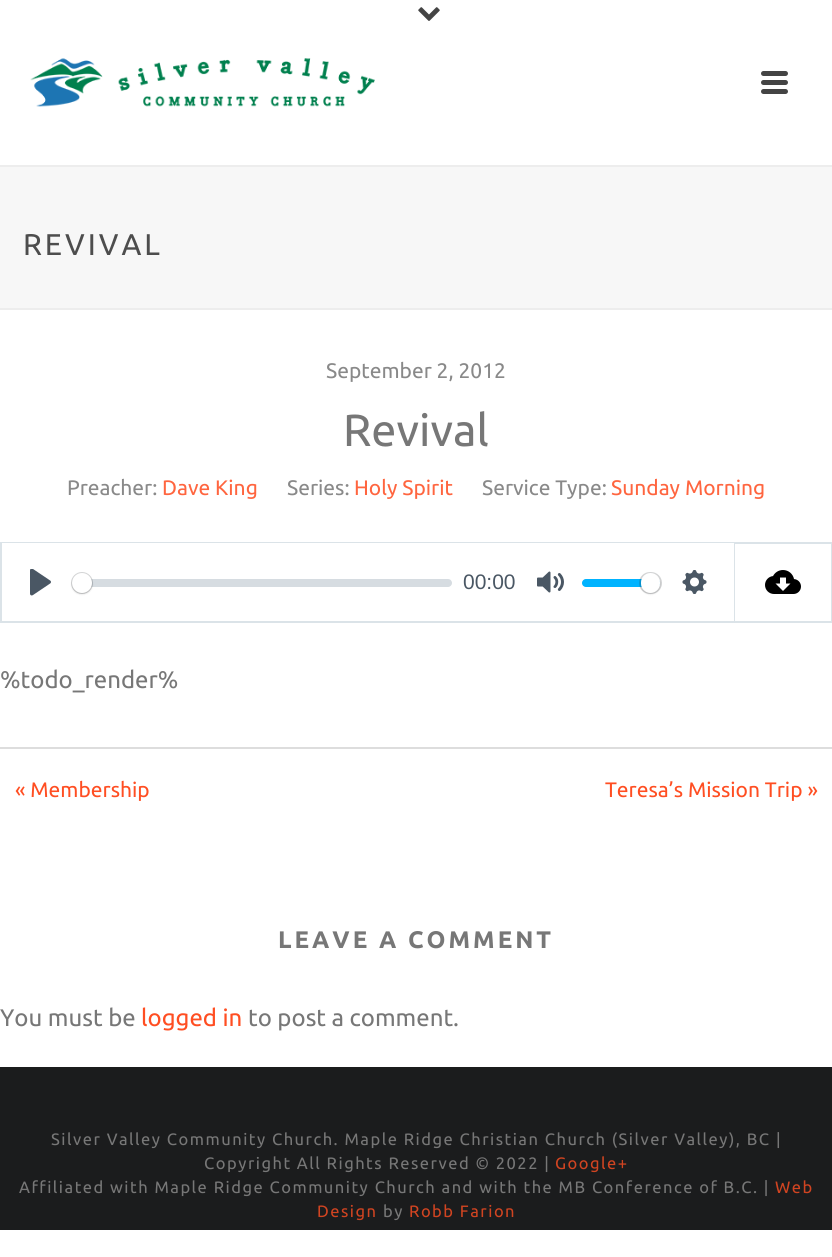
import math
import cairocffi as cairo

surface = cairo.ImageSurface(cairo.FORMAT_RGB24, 832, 1257)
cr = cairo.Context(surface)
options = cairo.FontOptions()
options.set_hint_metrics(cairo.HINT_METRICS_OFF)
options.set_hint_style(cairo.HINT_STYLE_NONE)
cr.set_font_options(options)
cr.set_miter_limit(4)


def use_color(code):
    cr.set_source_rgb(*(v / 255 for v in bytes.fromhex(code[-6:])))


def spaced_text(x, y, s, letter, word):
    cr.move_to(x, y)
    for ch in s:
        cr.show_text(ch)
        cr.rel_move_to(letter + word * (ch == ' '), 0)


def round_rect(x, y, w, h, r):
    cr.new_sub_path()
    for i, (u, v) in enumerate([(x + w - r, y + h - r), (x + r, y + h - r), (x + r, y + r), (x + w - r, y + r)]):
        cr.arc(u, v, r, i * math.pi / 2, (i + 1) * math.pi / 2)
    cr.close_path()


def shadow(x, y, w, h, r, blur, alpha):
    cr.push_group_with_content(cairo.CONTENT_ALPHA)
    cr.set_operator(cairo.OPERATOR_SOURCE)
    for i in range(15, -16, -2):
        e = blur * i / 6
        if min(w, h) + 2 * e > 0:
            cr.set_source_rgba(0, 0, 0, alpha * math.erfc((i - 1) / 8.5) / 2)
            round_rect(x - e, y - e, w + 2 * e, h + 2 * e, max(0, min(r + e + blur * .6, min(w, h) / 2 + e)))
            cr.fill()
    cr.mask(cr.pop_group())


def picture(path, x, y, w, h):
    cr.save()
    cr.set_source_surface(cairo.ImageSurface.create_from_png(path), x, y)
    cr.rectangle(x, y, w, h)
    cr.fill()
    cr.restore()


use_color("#ffffff")
cr.paint()
use_color("#ededed")
cr.rectangle(0, 308, 832, 2)
cr.fill()
cr.rectangle(0, 165, 832, 2)
cr.fill()
picture("img1.png", 418, 7, 22, 14)
picture("img2.png", 30, 58, 345, 49)
use_color("#444444")
round_rect(761, 71, 27, 5, 2.5)
cr.fill()
round_rect(761, 80, 27, 5, 2.5)
cr.fill()
round_rect(761, 89, 27, 5, 2.5)
cr.fill()
use_color("#f7f7f7")
cr.rectangle(0, 167, 832, 141)
cr.fill()
cr.select_font_face("Ubuntu")
cr.set_font_size(30)
use_color("#4d4d4d")
spaced_text(23, 255, "REVIVAL", 3, 0)
cr.set_font_size(21)
use_color("#898989")
cr.move_to(326, 378)
cr.show_text("September 2, 2012")
cr.set_font_size(45)
use_color("#777777")
cr.move_to(343, 446)
cr.show_text("Revival")
cr.set_font_size(21)
use_color("#898989")
cr.move_to(67, 495)
cr.show_text("Preacher:")
use_color("#ff653f")
cr.move_to(162, 495)
cr.show_text("Dave King")
use_color("#898989")
cr.move_to(287, 495)
cr.show_text("Series:")
use_color("#ff653f")
cr.move_to(354, 495)
cr.show_text("Holy Spirit")
use_color("#898989")
cr.move_to(482, 495)
cr.show_text("Service Type:")
use_color("#ff653f")
cr.move_to(611, 495)
cr.show_text("Sunday Morning")
cr.rectangle(1, 543, 733, 79)
use_color("#dbe3e8")
cr.stroke()
use_color("#ffffff")
cr.rectangle(2, 543, 732, 78)
cr.fill()
picture("img3.png", 30, 569, 21, 27)
cr.set_source_rgba(0.757, 0.788, 0.82, 0.66)
round_rect(72, 579, 380, 8, 4)
cr.fill()
cr.arc(82, 583, 10, 0, 2 * math.pi)
cr.set_source_rgba(0.137, 0.161, 0.184, 0.2)
cr.stroke()
use_color("#000000")
shadow(72, 575, 20, 19, 9.5, 1, 0.15)
use_color("#ffffff")
cr.arc(82, 583, 10, 0, 2 * math.pi)
cr.fill()
cr.select_font_face("Liberation Sans")
use_color("#4a5764")
cr.move_to(463, 589)
cr.show_text("00:00")
picture("img4.png", 537, 571, 27, 22)
use_color("#00b3ff")
round_rect(582, 579, 78, 8, 4)
cr.fill()
round_rect(640, 573, 21, 20, 10)
cr.set_source_rgba(0.137, 0.161, 0.184, 0.2)
cr.stroke()
use_color("#000000")
shadow(641, 575, 19, 19, 9.5, 1, 0.15)
use_color("#ffffff")
round_rect(641, 573, 19, 20, 9.5)
cr.fill()
picture("img5.png", 682, 570, 25, 24)
use_color("#dbe3e8")
cr.rectangle(735, 542, 97, 2)
cr.fill()
cr.rectangle(831, 542, 1, 81)
cr.fill()
cr.rectangle(735, 621, 97, 2)
cr.fill()
picture("img6.png", 765, 570, 36, 24)
cr.select_font_face("Ubuntu")
cr.set_font_size(24)
use_color("#777777")
cr.move_to(0, 688)
cr.show_text("%todo_render%")
use_color("#dddddd")
cr.rectangle(0, 747, 832, 2)
cr.fill()
cr.set_font_size(21)
use_color("#ff4e22")
cr.move_to(15, 797)
cr.show_text("« Membership")
cr.move_to(605, 797)
cr.show_text("Teresa’s Mission Trip »")
cr.select_font_face("Ubuntu", cairo.FONT_SLANT_NORMAL, cairo.FONT_WEIGHT_BOLD)
cr.set_font_size(24)
use_color("#777777")
spaced_text(278, 948, "LEAVE A COMMENT", 3, 0)
cr.select_font_face("Ubuntu")
cr.move_to(0, 1026)
cr.show_text("You must be")
use_color("#ff4e22")
cr.move_to(141, 1026)
cr.show_text("logged in")
use_color("#777777")
cr.move_to(248, 1026)
cr.show_text("to post a comment.")
use_color("#1b1c1d")
cr.rectangle(0, 1067, 832, 163)
cr.fill()
cr.set_font_size(16.5)
use_color("#777777")
spaced_text(51, 1145, "Silver Valley Community Church. Maple Ridge Christian Church (Silver Valley), BC |", 1.5, 0)
spaced_text(204, 1169, "Copyright All Rights Reserved © 2022 |", 1.5, 0)
use_color("#d14421")
spaced_text(555, 1169, "Google+", 1.5, 0)
use_color("#777777")
spaced_text(19, 1193, "Affiliated with Maple Ridge Community Church and with the MB Conference of B.C. |", 1.5, 0)
use_color("#d14421")
spaced_text(775, 1193, "Web", 1.5, 0)
spaced_text(317, 1217, "Design", 1.5, 0)
use_color("#777777")
spaced_text(383, 1217, "by", 1.5, 0)
use_color("#d14421")
spaced_text(409, 1217, "Robb Farion", 1.5, 0)
surface.write_to_png("result.png")
